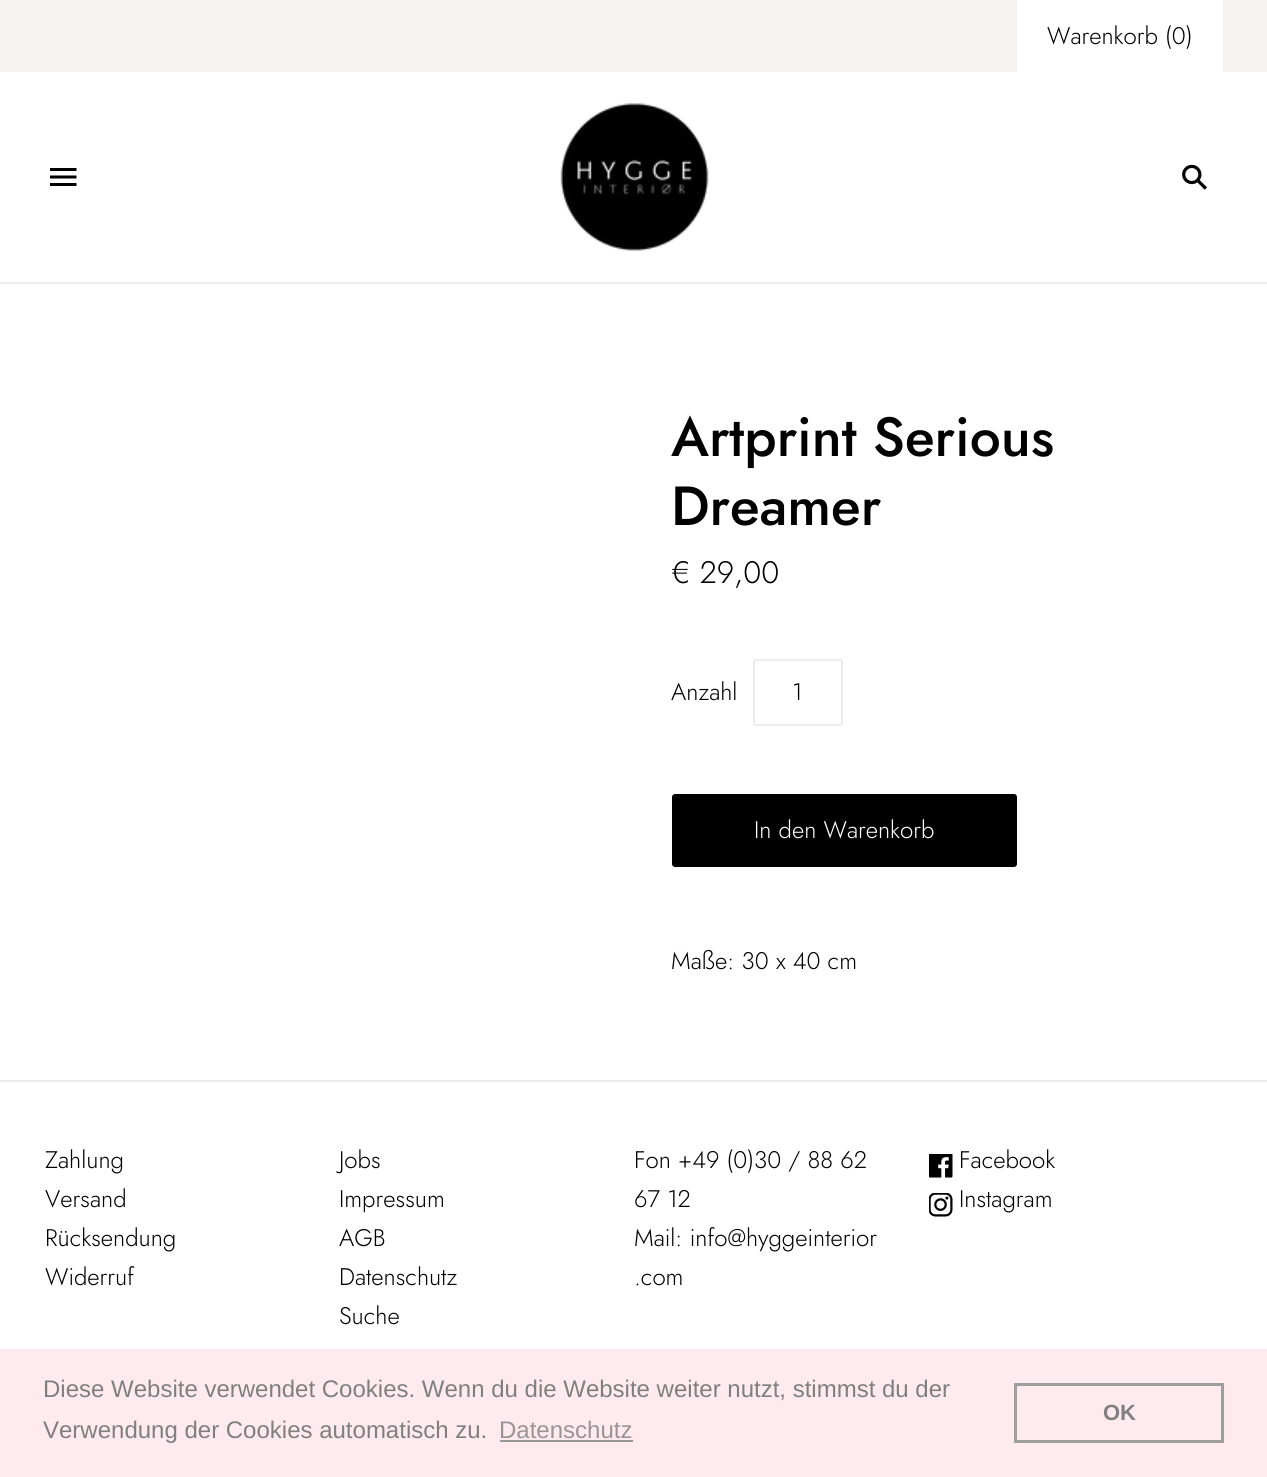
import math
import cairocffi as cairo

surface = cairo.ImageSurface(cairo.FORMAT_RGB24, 1267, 1477)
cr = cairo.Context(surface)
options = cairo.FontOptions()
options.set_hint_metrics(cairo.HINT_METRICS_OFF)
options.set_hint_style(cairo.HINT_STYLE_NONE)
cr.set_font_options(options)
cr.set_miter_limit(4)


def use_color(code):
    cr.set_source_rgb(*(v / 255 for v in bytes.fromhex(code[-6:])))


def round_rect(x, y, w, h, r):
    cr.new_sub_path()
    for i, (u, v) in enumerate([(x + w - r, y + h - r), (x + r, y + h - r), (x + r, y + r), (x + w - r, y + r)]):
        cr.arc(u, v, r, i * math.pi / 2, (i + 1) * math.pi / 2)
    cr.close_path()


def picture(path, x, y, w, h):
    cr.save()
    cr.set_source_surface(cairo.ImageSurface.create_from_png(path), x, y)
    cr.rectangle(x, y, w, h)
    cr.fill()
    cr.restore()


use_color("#ffffff")
cr.paint()
use_color("#edecea")
cr.rectangle(0, 282, 1267, 2)
cr.fill()
use_color("#f5f4f2")
cr.rectangle(0, 0, 1267, 72)
cr.fill()
use_color("#ffffff")
cr.rectangle(1017, 0, 206, 72)
cr.fill()
cr.select_font_face("Jost Light")
cr.set_font_size(24)
use_color("#000000")
cr.move_to(1047, 44)
cr.show_text("Warenkorb (0)")
picture("img1.png", 50, 168, 27, 18)
picture("img2.png", 560, 103, 149, 148)
picture("img3.png", 1182, 164, 25, 26)
cr.select_font_face("Jost Medium")
cr.set_font_size(55)
cr.move_to(671, 456)
cr.show_text("Artprint Serious")
cr.move_to(671, 525)
cr.show_text("Dreamer")
cr.select_font_face("Jost Light")
cr.set_font_size(31)
cr.move_to(671, 583)
cr.show_text("€ 29,00")
cr.set_font_size(24)
cr.move_to(671, 700)
cr.show_text("Anzahl")
round_rect(754, 660, 88, 65, 2)
use_color("#edecea")
cr.stroke()
use_color("#000000")
cr.move_to(792, 700)
cr.show_text("1")
round_rect(672, 794, 345, 73, 3)
cr.fill()
use_color("#ffffff")
cr.move_to(754, 838)
cr.show_text("In den Warenkorb")
use_color("#000000")
cr.move_to(671, 969)
cr.show_text("Maße: 30 x 40 cm")
use_color("#edecea")
cr.rectangle(0, 1080, 1267, 2)
cr.fill()
use_color("#000000")
cr.move_to(45, 1168)
cr.show_text("Zahlung")
cr.move_to(45, 1207)
cr.show_text("Versand")
cr.move_to(45, 1246)
cr.show_text("Rücksendung")
cr.move_to(45, 1285)
cr.show_text("Widerruf")
cr.move_to(339, 1168)
cr.show_text("Jobs")
cr.move_to(339, 1207)
cr.show_text("Impressum")
cr.move_to(339, 1246)
cr.show_text("AGB")
cr.move_to(339, 1285)
cr.show_text("Datenschutz")
cr.move_to(339, 1324)
cr.show_text("Suche")
cr.move_to(634, 1168)
cr.show_text("Fon +49 (0)30 / 88 62")
cr.move_to(634, 1207)
cr.show_text("67 12")
cr.move_to(634, 1246)
cr.show_text("Mail: info@hyggeinterior")
cr.move_to(634, 1285)
cr.show_text(".com")
picture("img4.png", 929, 1154, 24, 24)
cr.move_to(959, 1168)
cr.show_text("Facebook")
picture("img5.png", 929, 1193, 24, 24)
cr.move_to(959, 1207)
cr.show_text("Instagram")
use_color("#ffebee")
cr.rectangle(0, 1349, 1267, 128)
cr.fill()
cr.select_font_face("Liberation Sans")
use_color("#7f7f7f")
cr.move_to(43, 1397)
cr.show_text("Diese Website verwendet Cookies. Wenn du die Website weiter nutzt, stimmst du der")
cr.move_to(43, 1438)
cr.show_text("Verwendung der Cookies automatisch zu.")
use_color("#999595")
cr.move_to(499, 1438)
cr.show_text("Datenschutz")
cr.rectangle(500, 1440, 133, 2)
cr.fill()
cr.rectangle(1015.5, 1384.5, 207, 57)
use_color("#9e9e9e")
cr.set_line_width(3)
cr.stroke()
cr.select_font_face("Liberation Sans", cairo.FONT_SLANT_NORMAL, cairo.FONT_WEIGHT_BOLD)
cr.set_font_size(22)
use_color("#7f7f7f")
cr.move_to(1103, 1420)
cr.show_text("OK")
surface.write_to_png("result.png")
